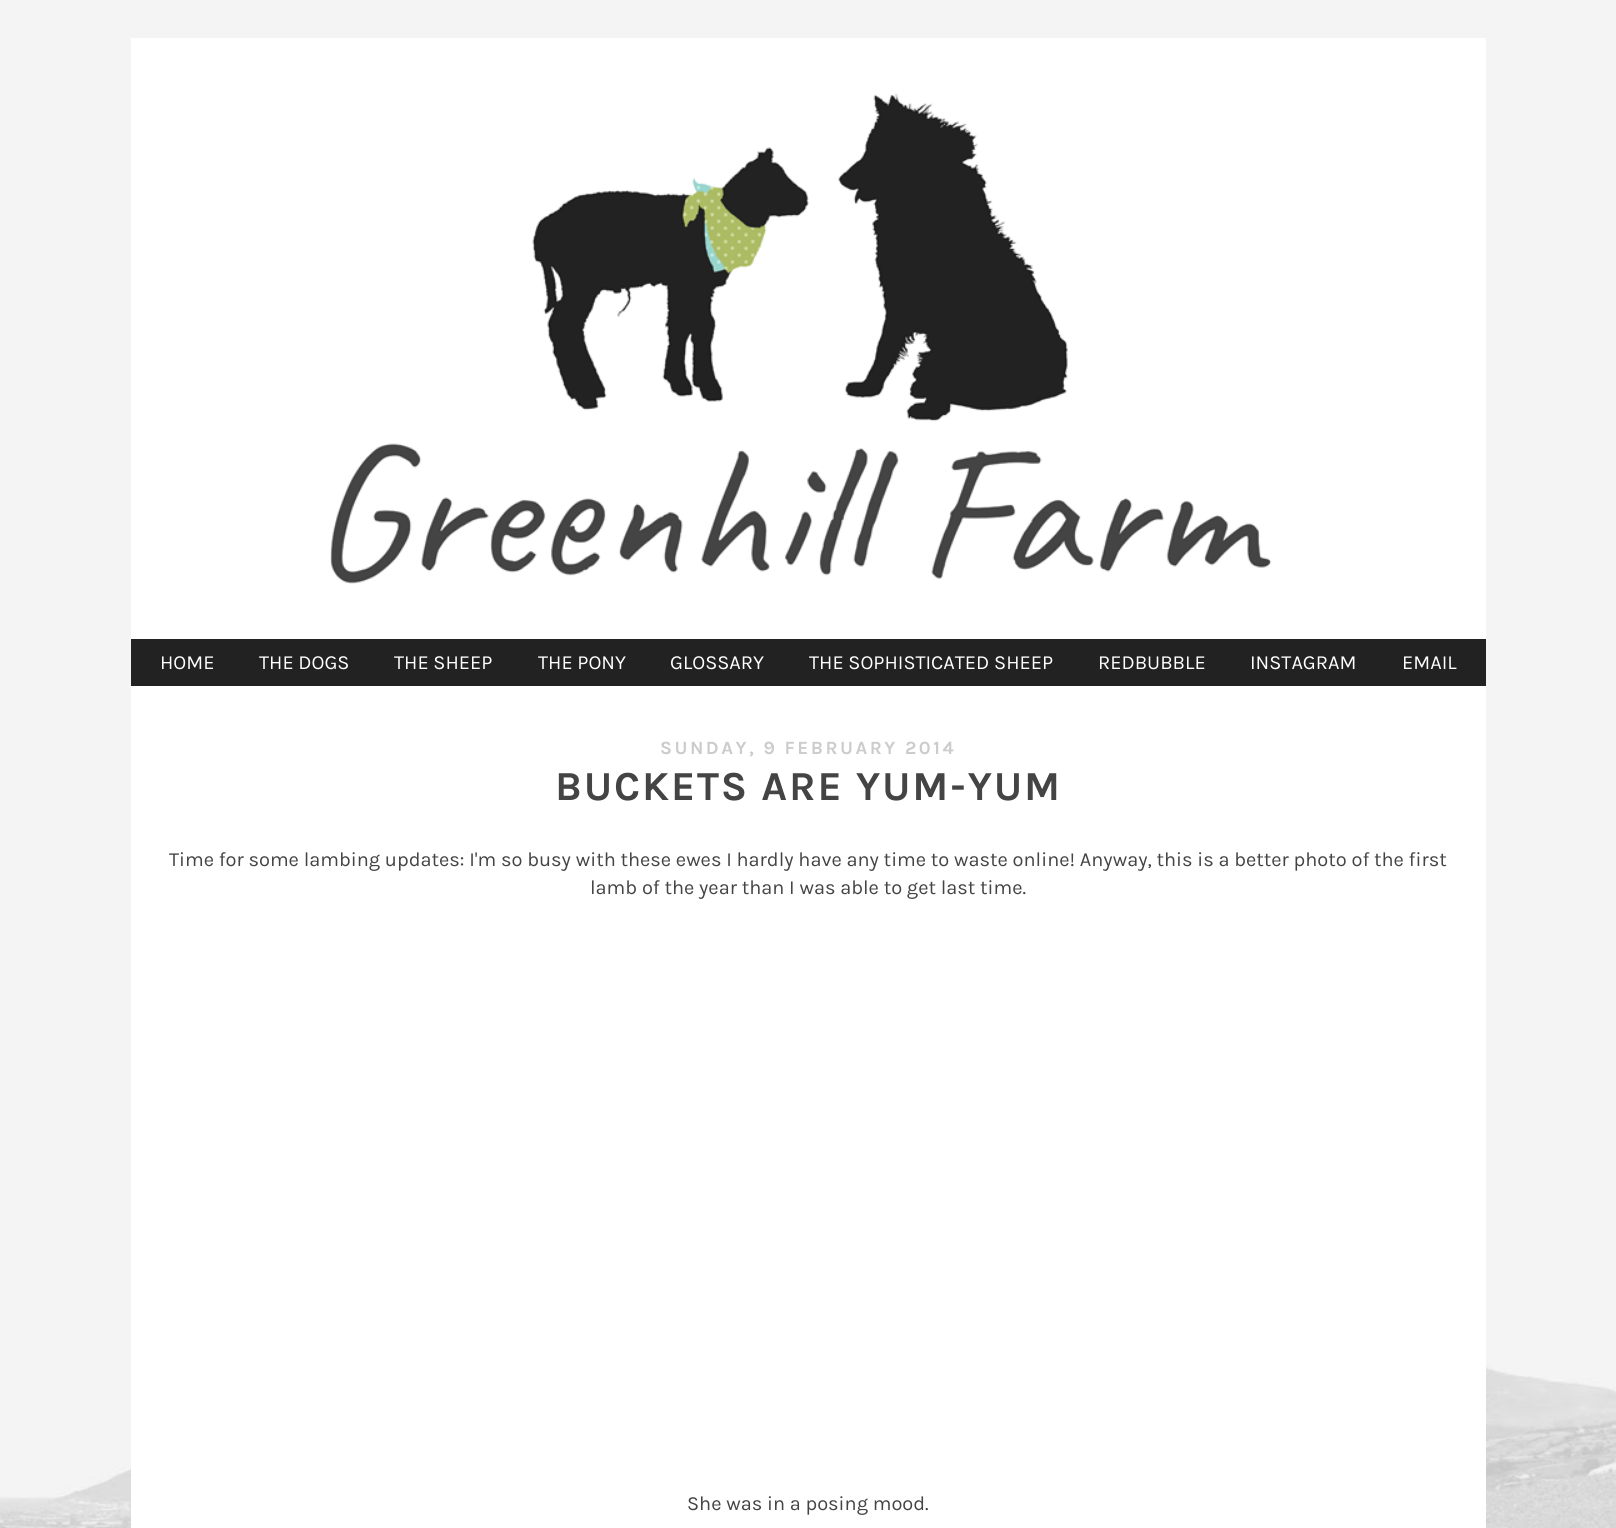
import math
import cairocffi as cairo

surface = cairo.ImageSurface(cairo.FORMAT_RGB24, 1616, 1528)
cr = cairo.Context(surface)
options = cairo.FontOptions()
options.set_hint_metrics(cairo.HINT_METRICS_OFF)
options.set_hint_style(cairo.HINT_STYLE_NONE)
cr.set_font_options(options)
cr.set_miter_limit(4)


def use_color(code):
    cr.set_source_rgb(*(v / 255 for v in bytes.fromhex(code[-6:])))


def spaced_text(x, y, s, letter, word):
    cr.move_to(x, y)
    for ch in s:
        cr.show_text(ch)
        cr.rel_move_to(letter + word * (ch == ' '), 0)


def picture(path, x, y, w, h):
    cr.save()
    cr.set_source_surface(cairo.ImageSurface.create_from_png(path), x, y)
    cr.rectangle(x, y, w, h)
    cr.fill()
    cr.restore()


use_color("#f4f4f4")
cr.paint()
picture("img1.png", 0, 1352, 1616, 176)
use_color("#ffffff")
cr.rectangle(131, 38, 1355, 1490)
cr.fill()
picture("img2.png", 330, 93, 942, 491)
use_color("#222222")
cr.rectangle(131, 639, 1355, 47)
cr.fill()
cr.select_font_face("Karla")
cr.set_font_size(20)
use_color("#ffffff")
cr.move_to(160, 669)
cr.show_text("HOME")
cr.move_to(259, 669)
cr.show_text("THE DOGS")
cr.move_to(394, 669)
cr.show_text("THE SHEEP")
cr.move_to(538, 669)
cr.show_text("THE PONY")
cr.move_to(670, 669)
cr.show_text("GLOSSARY")
cr.move_to(809, 669)
cr.show_text("THE SOPHISTICATED SHEEP")
cr.move_to(1098, 669)
cr.show_text("REDBUBBLE")
cr.move_to(1250, 669)
cr.show_text("INSTAGRAM")
cr.move_to(1402, 669)
cr.show_text("EMAIL")
cr.select_font_face("Karla", cairo.FONT_SLANT_NORMAL, cairo.FONT_WEIGHT_BOLD)
cr.set_font_size(18.75)
use_color("#cccccc")
spaced_text(660, 754, "SUNDAY, 9 FEBRUARY 2014", 2.5, 0)
cr.set_font_size(41.25)
use_color("#444444")
spaced_text(555, 800, "BUCKETS ARE YUM-YUM", 1.9, 0)
cr.select_font_face("Karla")
cr.set_font_size(20)
cr.move_to(169, 866)
cr.show_text("Time for some lambing updates: I'm so busy with these ewes I hardly have any time to waste online! Anyway, this is a better photo of the first")
cr.move_to(590, 894)
cr.show_text("lamb of the year than I was able to get last time.")
cr.move_to(687, 1510)
cr.show_text("She was in a posing mood.")
surface.write_to_png("result.png")
